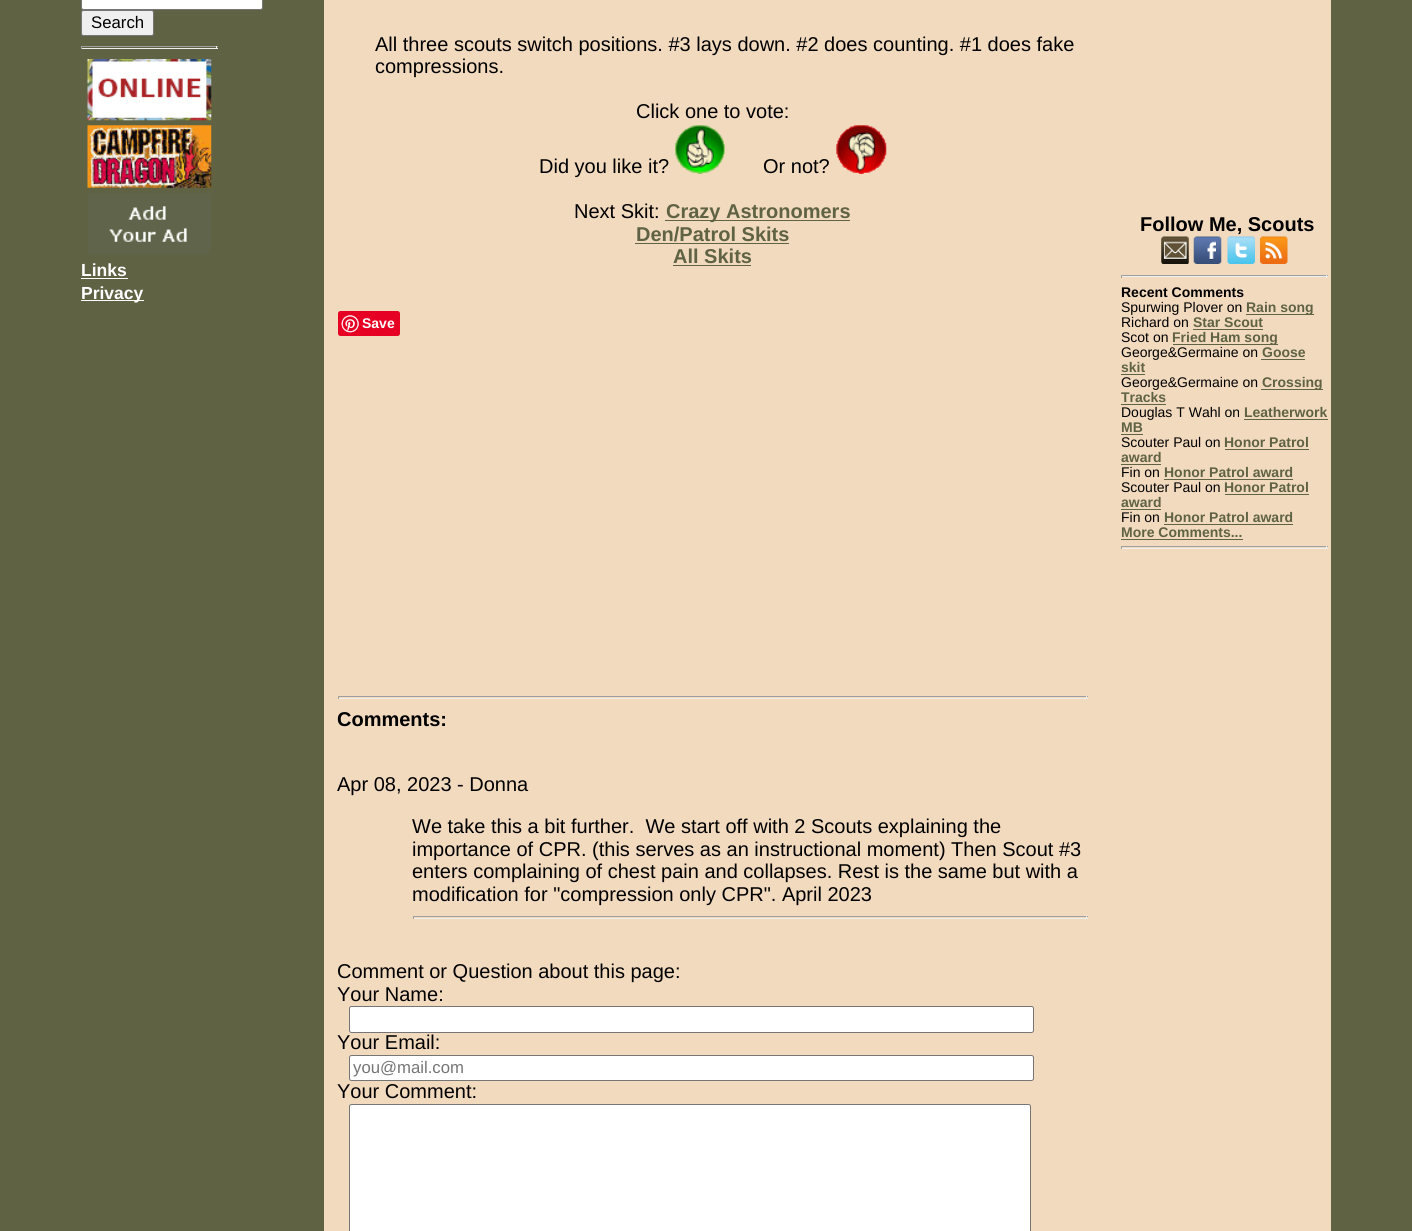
import math
import cairocffi as cairo

surface = cairo.ImageSurface(cairo.FORMAT_RGB24, 1412, 1231)
cr = cairo.Context(surface)
options = cairo.FontOptions()
options.set_hint_metrics(cairo.HINT_METRICS_OFF)
options.set_hint_style(cairo.HINT_STYLE_NONE)
cr.set_font_options(options)
cr.set_miter_limit(4)


def use_color(code):
    cr.set_source_rgb(*(v / 255 for v in bytes.fromhex(code[-6:])))


def round_rect(x, y, w, h, r):
    cr.new_sub_path()
    for i, (u, v) in enumerate([(x + w - r, y + h - r), (x + r, y + h - r), (x + r, y + r), (x + w - r, y + r)]):
        cr.arc(u, v, r, i * math.pi / 2, (i + 1) * math.pi / 2)
    cr.close_path()


def picture(path, x, y, w, h):
    cr.save()
    cr.set_source_surface(cairo.ImageSurface.create_from_png(path), x, y)
    cr.rectangle(x, y, w, h)
    cr.fill()
    cr.restore()


use_color("#5f6243")
cr.paint()
use_color("#ffffff")
round_rect(81.5, -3.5, 181, 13, 2)
cr.fill_preserve()
use_color("#767676")
cr.set_line_width(1)
cr.stroke()
use_color("#efefef")
round_rect(81.5, 10.5, 72, 25, 2)
cr.fill_preserve()
use_color("#767676")
cr.stroke()
cr.select_font_face("Liberation Sans")
cr.set_font_size(16.75)
use_color("#000000")
cr.move_to(91, 28)
cr.show_text("Search")
use_color("#9f9f9f")
cr.rectangle(81, 46, 137, 1)
cr.fill()
use_color("#eeeeee")
cr.rectangle(216, 46, 1, 3)
cr.fill()
cr.rectangle(81, 48, 137, 1)
cr.fill()
use_color("#9f9f9f")
cr.rectangle(81, 46, 1, 3)
cr.fill()
picture("img1.png", 87, 59, 125, 62)
picture("img2.png", 87, 125, 125, 63)
picture("img3.png", 88, 193, 123, 61)
cr.select_font_face("Liberation Sans", cairo.FONT_SLANT_NORMAL, cairo.FONT_WEIGHT_BOLD)
cr.set_font_size(17.5)
use_color("#ffffff")
cr.move_to(81, 276)
cr.show_text("Links")
cr.rectangle(81, 278, 47, 1)
cr.fill()
cr.rectangle(81, 300, 63, 1)
cr.fill()
cr.move_to(81, 299)
cr.show_text("Privacy")
use_color("#f2dabf")
cr.rectangle(324, 0, 1007, 1231)
cr.fill()
cr.select_font_face("Liberation Sans")
cr.set_font_size(20)
use_color("#000000")
cr.move_to(375, 51)
cr.show_text("All three scouts switch positions. #3 lays down. #2 does counting. #1 does fake")
cr.move_to(375, 73)
cr.show_text("compressions.")
cr.move_to(636, 118)
cr.show_text("Click one to vote:")
cr.move_to(539, 173)
cr.show_text("Did you like it?")
picture("img4.png", 675, 125, 50, 49)
cr.move_to(763, 173)
cr.show_text("Or not?")
picture("img5.png", 836, 125, 51, 49)
cr.move_to(574, 218)
cr.show_text("Next Skit:")
use_color("#5f6243")
cr.rectangle(665, 220, 185, 1)
cr.fill()
cr.select_font_face("Liberation Sans", cairo.FONT_SLANT_NORMAL, cairo.FONT_WEIGHT_BOLD)
cr.move_to(666, 218)
cr.show_text("Crazy Astronomers")
cr.move_to(636, 241)
cr.show_text("Den/Patrol Skits")
cr.rectangle(635, 243, 154, 1)
cr.fill()
cr.move_to(673, 263)
cr.show_text("All Skits")
cr.rectangle(673, 265, 78, 1)
cr.fill()
use_color("#e60023")
round_rect(338, 311, 62, 25, 2.5)
cr.fill()
picture("img6.png", 341, 315, 18, 18)
cr.set_font_size(14)
use_color("#ffffff")
cr.move_to(362, 328)
cr.show_text("Save")
use_color("#9f9f9f")
cr.rectangle(338, 696, 750, 1)
cr.fill()
use_color("#eeeeee")
cr.rectangle(1086, 696, 1, 3)
cr.fill()
cr.rectangle(338, 698, 750, 1)
cr.fill()
use_color("#9f9f9f")
cr.rectangle(338, 696, 1, 3)
cr.fill()
cr.set_font_size(20)
use_color("#000000")
cr.move_to(337, 726)
cr.show_text("Comments:")
cr.select_font_face("Liberation Sans")
cr.move_to(337, 791)
cr.show_text("Apr 08, 2023 - Donna")
cr.move_to(412, 833)
cr.show_text("We take this a bit further.  We start off with 2 Scouts explaining the")
cr.move_to(412, 856)
cr.show_text("importance of CPR. (this serves as an instructional moment) Then Scout #3")
cr.move_to(412, 878)
cr.show_text("enters complaining of chest pain and collapses. Rest is the same but with a")
cr.move_to(412, 901)
cr.show_text("modification for \"compression only CPR\". April 2023")
use_color("#9f9f9f")
cr.rectangle(413, 916, 675, 1)
cr.fill()
use_color("#eeeeee")
cr.rectangle(1086, 916, 1, 3)
cr.fill()
cr.rectangle(413, 918, 675, 1)
cr.fill()
use_color("#9f9f9f")
cr.rectangle(413, 916, 1, 3)
cr.fill()
use_color("#000000")
cr.move_to(337, 978)
cr.show_text("Comment or Question about this page:")
cr.move_to(337, 1001)
cr.show_text("Your Name:")
use_color("#ffffff")
round_rect(349.5, 1006.5, 684, 26, 2)
cr.fill_preserve()
use_color("#767676")
cr.stroke()
use_color("#000000")
cr.move_to(337, 1049)
cr.show_text("Your Email:")
use_color("#ffffff")
round_rect(349.5, 1055.5, 684, 25, 2)
cr.fill_preserve()
use_color("#767676")
cr.stroke()
cr.set_font_size(16.75)
use_color("#757575")
cr.move_to(353, 1073)
cr.show_text("you@mail.com")
cr.set_font_size(20)
use_color("#000000")
cr.move_to(337, 1098)
cr.show_text("Your Comment:")
use_color("#ffffff")
round_rect(349.5, 1104.5, 681, 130, 2)
cr.fill_preserve()
use_color("#767676")
cr.stroke()
cr.select_font_face("Liberation Sans", cairo.FONT_SLANT_NORMAL, cairo.FONT_WEIGHT_BOLD)
use_color("#000000")
cr.move_to(1140, 231)
cr.show_text("Follow Me, Scouts")
picture("img7.png", 1161, 236, 28, 28)
picture("img8.png", 1193, 236, 29, 28)
picture("img9.png", 1227, 236, 28, 28)
picture("img10.png", 1260, 236, 28, 28)
use_color("#9f9f9f")
cr.rectangle(1121, 275, 207, 1)
cr.fill()
use_color("#eeeeee")
cr.rectangle(1326, 275, 1, 3)
cr.fill()
cr.rectangle(1121, 276, 207, 1)
cr.fill()
use_color("#9f9f9f")
cr.rectangle(1121, 275, 1, 3)
cr.fill()
cr.set_font_size(14)
use_color("#000000")
cr.move_to(1121, 297)
cr.show_text("Recent Comments")
cr.select_font_face("Liberation Sans")
cr.move_to(1121, 312)
cr.show_text("Spurwing Plover on")
use_color("#5f6243")
cr.rectangle(1246, 314, 68, 1)
cr.fill()
cr.select_font_face("Liberation Sans", cairo.FONT_SLANT_NORMAL, cairo.FONT_WEIGHT_BOLD)
cr.move_to(1246, 312)
cr.show_text("Rain song")
cr.select_font_face("Liberation Sans")
use_color("#000000")
cr.move_to(1121, 327)
cr.show_text("Richard on")
cr.select_font_face("Liberation Sans", cairo.FONT_SLANT_NORMAL, cairo.FONT_WEIGHT_BOLD)
use_color("#5f6243")
cr.move_to(1193, 327)
cr.show_text("Star Scout")
cr.rectangle(1193, 329, 70, 1)
cr.fill()
cr.select_font_face("Liberation Sans")
use_color("#000000")
cr.move_to(1121, 342)
cr.show_text("Scot on")
use_color("#5f6243")
cr.rectangle(1173, 344, 105, 1)
cr.fill()
cr.select_font_face("Liberation Sans", cairo.FONT_SLANT_NORMAL, cairo.FONT_WEIGHT_BOLD)
cr.move_to(1172, 342)
cr.show_text("Fried Ham song")
cr.select_font_face("Liberation Sans")
use_color("#000000")
cr.move_to(1121, 357)
cr.show_text("George&Germaine on")
cr.select_font_face("Liberation Sans", cairo.FONT_SLANT_NORMAL, cairo.FONT_WEIGHT_BOLD)
use_color("#5f6243")
cr.move_to(1262, 357)
cr.show_text("Goose")
cr.rectangle(1261, 359, 44, 1)
cr.fill()
cr.move_to(1121, 372)
cr.show_text("skit")
cr.rectangle(1121, 374, 24, 1)
cr.fill()
cr.select_font_face("Liberation Sans")
use_color("#000000")
cr.move_to(1121, 387)
cr.show_text("George&Germaine on")
use_color("#5f6243")
cr.rectangle(1261, 389, 62, 1)
cr.fill()
cr.select_font_face("Liberation Sans", cairo.FONT_SLANT_NORMAL, cairo.FONT_WEIGHT_BOLD)
cr.move_to(1262, 387)
cr.show_text("Crossing")
cr.move_to(1121, 402)
cr.show_text("Tracks")
cr.rectangle(1121, 404, 45, 1)
cr.fill()
cr.select_font_face("Liberation Sans")
use_color("#000000")
cr.move_to(1121, 417)
cr.show_text("Douglas T Wahl on")
cr.select_font_face("Liberation Sans", cairo.FONT_SLANT_NORMAL, cairo.FONT_WEIGHT_BOLD)
use_color("#5f6243")
cr.move_to(1244, 417)
cr.show_text("Leatherwork")
cr.rectangle(1244, 419, 84, 1)
cr.fill()
cr.move_to(1121, 432)
cr.show_text("MB")
cr.rectangle(1121, 434, 22, 1)
cr.fill()
cr.select_font_face("Liberation Sans")
use_color("#000000")
cr.move_to(1121, 447)
cr.show_text("Scouter Paul on")
cr.select_font_face("Liberation Sans", cairo.FONT_SLANT_NORMAL, cairo.FONT_WEIGHT_BOLD)
use_color("#5f6243")
cr.move_to(1224, 447)
cr.show_text("Honor Patrol")
cr.rectangle(1225, 449, 84, 1)
cr.fill()
cr.move_to(1121, 462)
cr.show_text("award")
cr.rectangle(1121, 464, 40, 1)
cr.fill()
cr.select_font_face("Liberation Sans")
use_color("#000000")
cr.move_to(1121, 477)
cr.show_text("Fin on")
cr.select_font_face("Liberation Sans", cairo.FONT_SLANT_NORMAL, cairo.FONT_WEIGHT_BOLD)
use_color("#5f6243")
cr.move_to(1164, 477)
cr.show_text("Honor Patrol award")
cr.rectangle(1164, 479, 129, 1)
cr.fill()
cr.select_font_face("Liberation Sans")
use_color("#000000")
cr.move_to(1121, 492)
cr.show_text("Scouter Paul on")
cr.select_font_face("Liberation Sans", cairo.FONT_SLANT_NORMAL, cairo.FONT_WEIGHT_BOLD)
use_color("#5f6243")
cr.move_to(1224, 492)
cr.show_text("Honor Patrol")
cr.rectangle(1225, 494, 84, 1)
cr.fill()
cr.move_to(1121, 507)
cr.show_text("award")
cr.rectangle(1121, 509, 40, 1)
cr.fill()
cr.select_font_face("Liberation Sans")
use_color("#000000")
cr.move_to(1121, 522)
cr.show_text("Fin on")
cr.select_font_face("Liberation Sans", cairo.FONT_SLANT_NORMAL, cairo.FONT_WEIGHT_BOLD)
use_color("#5f6243")
cr.move_to(1164, 522)
cr.show_text("Honor Patrol award")
cr.rectangle(1164, 524, 129, 1)
cr.fill()
cr.move_to(1121, 537)
cr.show_text("More Comments...")
cr.rectangle(1121, 539, 122, 1)
cr.fill()
use_color("#9f9f9f")
cr.rectangle(1121, 546, 207, 1)
cr.fill()
use_color("#eeeeee")
cr.rectangle(1326, 546, 1, 3)
cr.fill()
cr.rectangle(1121, 548, 207, 1)
cr.fill()
use_color("#9f9f9f")
cr.rectangle(1121, 546, 1, 3)
cr.fill()
surface.write_to_png("result.png")
